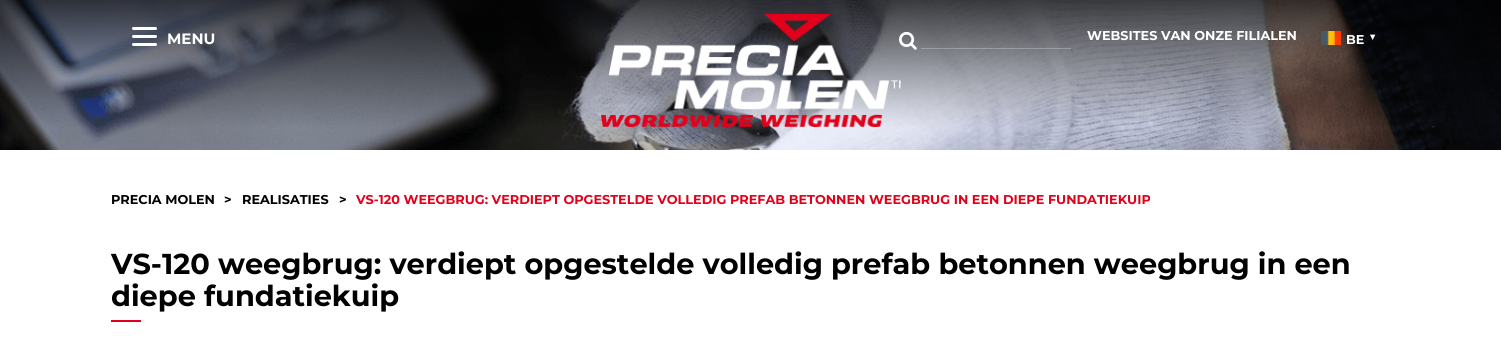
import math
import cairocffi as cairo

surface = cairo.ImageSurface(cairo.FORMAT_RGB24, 1501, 361)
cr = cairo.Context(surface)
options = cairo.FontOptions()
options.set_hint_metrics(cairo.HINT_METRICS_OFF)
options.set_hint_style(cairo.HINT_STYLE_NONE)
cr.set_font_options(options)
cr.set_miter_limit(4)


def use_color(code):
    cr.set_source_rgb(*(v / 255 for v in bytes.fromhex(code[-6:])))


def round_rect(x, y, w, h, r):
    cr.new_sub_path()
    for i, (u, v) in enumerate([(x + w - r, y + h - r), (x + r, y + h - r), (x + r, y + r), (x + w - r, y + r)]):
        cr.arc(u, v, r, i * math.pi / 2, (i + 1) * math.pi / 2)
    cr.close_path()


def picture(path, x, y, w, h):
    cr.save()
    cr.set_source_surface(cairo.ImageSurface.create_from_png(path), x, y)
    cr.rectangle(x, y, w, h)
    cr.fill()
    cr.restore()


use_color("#ffffff")
cr.paint()
picture("img1.png", 0, 0, 1501, 150)
use_color("#ffffff")
round_rect(132, 27, 25, 3, 1.5)
cr.fill()
round_rect(132, 35, 25, 3, 1.5)
cr.fill()
round_rect(132, 43, 25, 3, 1.5)
cr.fill()
cr.select_font_face("Montserrat", cairo.FONT_SLANT_NORMAL, cairo.FONT_WEIGHT_BOLD)
cr.set_font_size(15)
cr.move_to(167, 44)
cr.show_text("MENU")
picture("img2.png", 601, 14, 300, 113)
picture("img3.png", 899, 31, 18, 19)
cr.set_source_rgba(1, 1, 1, 0.25)
cr.rectangle(921, 48, 150, 1)
cr.fill()
cr.set_font_size(12.8)
use_color("#ffffff")
cr.move_to(1087, 40)
cr.show_text("WEBSITES VAN ONZE FILIALEN")
picture("img4.png", 1321, 31, 20, 14)
cr.move_to(1346, 44)
cr.show_text("BE")
cr.select_font_face("DejaVu Sans", cairo.FONT_SLANT_NORMAL, cairo.FONT_WEIGHT_BOLD)
cr.set_font_size(10)
cr.move_to(1370, 40)
cr.show_text("▾")
cr.select_font_face("Montserrat", cairo.FONT_SLANT_NORMAL, cairo.FONT_WEIGHT_BOLD)
cr.set_font_size(12.8)
use_color("#000000")
cr.move_to(111, 204)
cr.show_text("PRECIA MOLEN")
cr.move_to(224, 204)
cr.show_text(">")
cr.move_to(242, 204)
cr.show_text("REALISATIES")
cr.move_to(339, 204)
cr.show_text(">")
use_color("#e2001a")
cr.move_to(356, 204)
cr.show_text("VS-120 WEEGBRUG: VERDIEPT OPGESTELDE VOLLEDIG PREFAB BETONNEN WEEGBRUG IN EEN DIEPE FUNDATIEKUIP")
cr.set_font_size(28.8)
use_color("#000000")
cr.move_to(111, 274)
cr.show_text("VS-120 weegbrug: verdiept opgestelde volledig prefab betonnen weegbrug in een")
cr.move_to(111, 306)
cr.show_text("diepe fundatiekuip")
use_color("#e2001a")
cr.rectangle(111, 320, 30, 2)
cr.fill()
surface.write_to_png("result.png")
